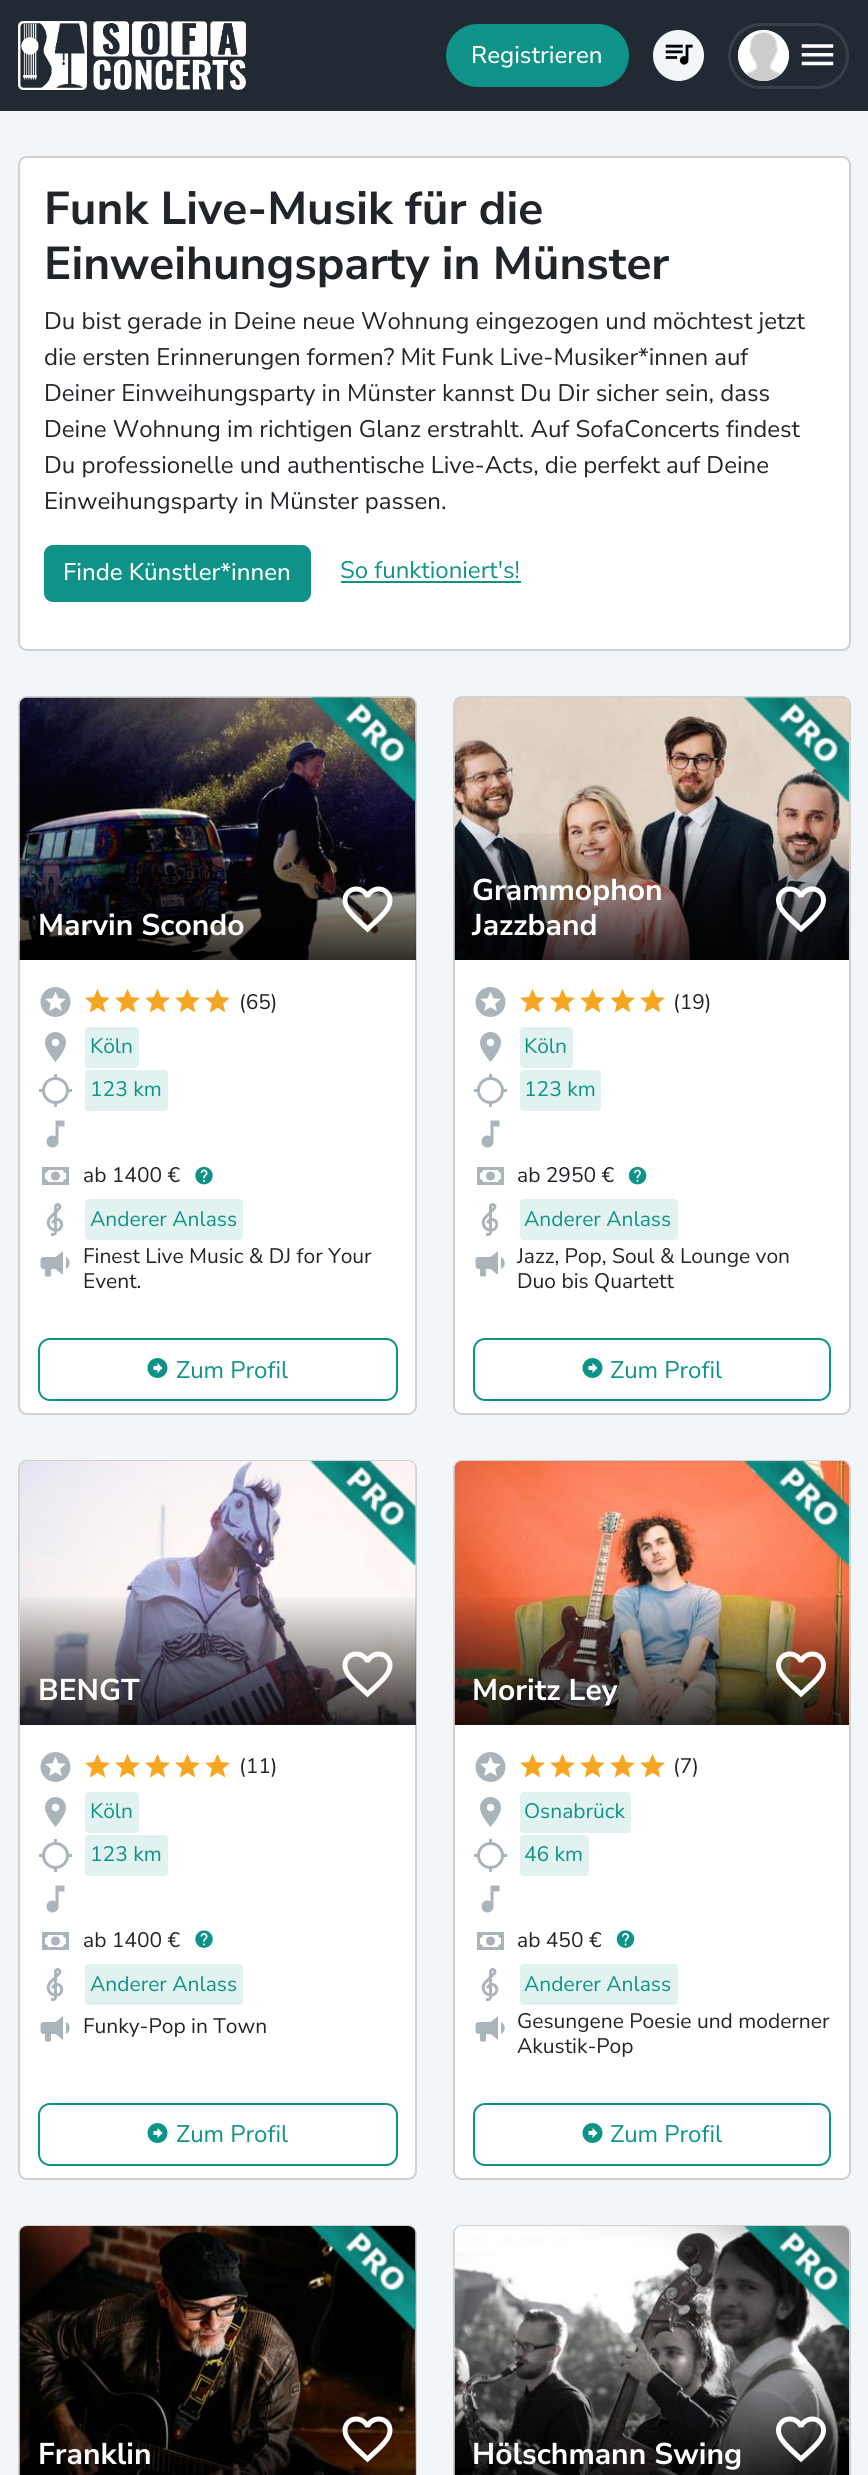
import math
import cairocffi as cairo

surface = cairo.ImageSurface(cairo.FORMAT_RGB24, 868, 2475)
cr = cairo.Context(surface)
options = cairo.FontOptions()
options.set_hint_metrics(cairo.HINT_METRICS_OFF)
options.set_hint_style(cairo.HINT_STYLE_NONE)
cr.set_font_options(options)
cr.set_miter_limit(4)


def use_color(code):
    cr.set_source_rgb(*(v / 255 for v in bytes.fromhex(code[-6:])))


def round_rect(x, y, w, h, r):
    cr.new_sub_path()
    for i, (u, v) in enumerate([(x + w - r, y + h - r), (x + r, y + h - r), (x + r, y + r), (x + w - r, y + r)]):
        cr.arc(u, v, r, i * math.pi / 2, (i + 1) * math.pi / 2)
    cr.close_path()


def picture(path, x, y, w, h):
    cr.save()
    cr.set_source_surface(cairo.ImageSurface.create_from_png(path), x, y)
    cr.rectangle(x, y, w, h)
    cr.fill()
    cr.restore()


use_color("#f2f6f9")
cr.paint()
use_color("#212a33")
cr.rectangle(0, 0, 868, 111)
cr.fill()
picture("img1.png", 18, 21, 69, 69)
picture("img2.png", 93, 21, 153, 69)
use_color("#0f9388")
round_rect(447, 25, 181, 61, 30.5)
cr.fill_preserve()
cr.stroke()
cr.select_font_face("Nunito Sans Medium")
cr.set_font_size(24)
use_color("#ffffff")
cr.move_to(471, 63)
cr.show_text("Registrieren")
use_color("#f2f6f9")
cr.new_path()
cr.arc(678.5, 55.5, 25.5, 0, 2 * math.pi)
cr.fill()
picture("img3.png", 665, 44, 28, 21)
round_rect(729.5, 24.5, 118, 63, 31.5)
use_color("#373f47")
cr.set_line_width(3)
cr.stroke()
use_color("#f2f6f9")
cr.arc(763.5, 55.5, 25.5, 0, 2 * math.pi)
cr.fill()
picture("img4.png", 737, 30, 52, 51)
picture("img5.png", 801, 44, 33, 22)
use_color("#ffffff")
round_rect(18, 156, 833, 495, 9)
cr.fill()
round_rect(19, 157, 831, 493, 8)
cr.set_source_rgba(0, 0, 0, 0.18)
cr.set_line_width(2)
cr.stroke()
cr.select_font_face("Nunito Sans", cairo.FONT_SLANT_NORMAL, cairo.FONT_WEIGHT_BOLD)
cr.set_font_size(46)
use_color("#212529")
cr.move_to(44, 224)
cr.show_text("Funk Live-Musik für die")
cr.move_to(44, 279)
cr.show_text("Einweihungsparty in Münster")
cr.select_font_face("Nunito Sans")
cr.set_font_size(24)
cr.move_to(44, 329)
cr.show_text("Du bist gerade in Deine neue Wohnung eingezogen und möchtest jetzt")
cr.move_to(44, 365)
cr.show_text("die ersten Erinnerungen formen? Mit Funk Live-Musiker*innen auf")
cr.move_to(44, 401)
cr.show_text("Deiner Einweihungsparty in Münster kannst Du Dir sicher sein, dass")
cr.move_to(44, 437)
cr.show_text("Deine Wohnung im richtigen Glanz erstrahlt. Auf SofaConcerts findest")
cr.move_to(44, 473)
cr.show_text("Du professionelle und authentische Live-Acts, die perfekt auf Deine")
cr.move_to(44, 509)
cr.show_text("Einweihungsparty in Münster passen.")
use_color("#0f9388")
round_rect(45, 546, 265, 55, 8)
cr.fill_preserve()
cr.stroke()
cr.select_font_face("Nunito Sans Medium")
use_color("#ffffff")
cr.move_to(63, 580)
cr.show_text("Finde Künstler*innen")
cr.select_font_face("Nunito Sans")
use_color("#0f9388")
cr.move_to(340, 578)
cr.show_text("So funktioniert's!")
cr.rectangle(341, 581, 180, 2)
cr.fill()
use_color("#ffffff")
round_rect(18, 696, 399, 719, 9)
cr.fill()
round_rect(19, 697, 397, 717, 8)
cr.set_source_rgba(0, 0, 0, 0.18)
cr.stroke()
picture("img6.png", 19, 697, 397, 263)
picture("img7.png", 310, 697, 106, 106)
gradient = cairo.LinearGradient(218, 698, 218, 960)
gradient.add_color_stop_rgba(0.5, 0, 0, 0, 0)
gradient.add_color_stop_rgba(1, 0, 0, 0, 0.8)
cr.set_source(gradient)
cr.rectangle(20, 833, 396, 127)
cr.fill()
cr.select_font_face("Nunito Sans", cairo.FONT_SLANT_NORMAL, cairo.FONT_WEIGHT_BOLD)
cr.set_font_size(30)
use_color("#ffffff")
cr.move_to(38, 935)
cr.show_text("Marvin Scondo")
picture("img8.png", 342, 886, 51, 47)
picture("img9.png", 40, 987, 31, 30)
picture("img10.png", 85, 988, 25, 25)
picture("img10.png", 115, 988, 25, 25)
picture("img10.png", 145, 988, 25, 25)
picture("img10.png", 175, 988, 25, 25)
picture("img10.png", 205, 988, 25, 25)
cr.select_font_face("Nunito Sans")
cr.set_font_size(21)
use_color("#212529")
cr.move_to(239, 1009)
cr.show_text("(65)")
picture("img11.png", 45, 1032, 21, 30)
use_color("#e2f2f1")
round_rect(84, 1026, 56, 43, 5)
cr.fill_preserve()
use_color("#ffffff")
cr.stroke()
use_color("#0f9388")
cr.move_to(90, 1053)
cr.show_text("Köln")
picture("img12.png", 39, 1074, 33, 33)
cr.set_source_rgba(0.059, 0.576, 0.533, 0.12)
round_rect(84, 1069, 85, 43, 5)
cr.fill_preserve()
use_color("#ffffff")
cr.stroke()
use_color("#0f9388")
cr.move_to(90, 1096)
cr.show_text("123 km")
picture("img13.png", 46, 1120, 19, 28)
picture("img14.png", 42, 1167, 27, 18)
use_color("#212529")
cr.move_to(83, 1182)
cr.show_text("ab 1400 €")
picture("img15.png", 195, 1166, 18, 19)
picture("img16.png", 46, 1203, 18, 33)
use_color("#e2f2f1")
round_rect(84, 1198, 160, 43, 5)
cr.fill_preserve()
use_color("#ffffff")
cr.stroke()
use_color("#0f9388")
cr.move_to(90, 1226)
cr.show_text("Anderer Anlass")
picture("img17.png", 40, 1251, 30, 26)
use_color("#212529")
cr.move_to(83, 1263)
cr.show_text("Finest Live Music & DJ for Your")
cr.move_to(83, 1288)
cr.show_text("Event.")
round_rect(39, 1339, 358, 61, 11)
use_color("#0f9388")
cr.stroke()
picture("img18.png", 147, 1358, 21, 20)
cr.set_font_size(24)
cr.move_to(176, 1378)
cr.show_text("Zum Profil")
use_color("#ffffff")
round_rect(453, 696, 398, 719, 9)
cr.fill()
round_rect(454, 697, 396, 717, 8)
cr.set_source_rgba(0, 0, 0, 0.18)
cr.stroke()
picture("img19.png", 454, 697, 395, 263)
picture("img20.png", 744, 697, 105, 106)
gradient = cairo.LinearGradient(652, 698, 652, 960)
gradient.add_color_stop_rgba(0.5, 0, 0, 0, 0)
gradient.add_color_stop_rgba(1, 0, 0, 0, 0.8)
cr.set_source(gradient)
cr.rectangle(455, 833, 394, 127)
cr.fill()
cr.select_font_face("Nunito Sans", cairo.FONT_SLANT_NORMAL, cairo.FONT_WEIGHT_BOLD)
cr.set_font_size(30)
use_color("#ffffff")
cr.move_to(472, 900)
cr.show_text("Grammophon")
cr.move_to(472, 935)
cr.show_text("Jazzband")
picture("img21.png", 776, 886, 50, 47)
picture("img9.png", 475, 987, 31, 30)
picture("img10.png", 520, 988, 25, 25)
picture("img10.png", 550, 988, 25, 25)
picture("img10.png", 580, 988, 25, 25)
picture("img10.png", 610, 988, 25, 25)
picture("img10.png", 640, 988, 25, 25)
cr.select_font_face("Nunito Sans")
cr.set_font_size(21)
use_color("#212529")
cr.move_to(673, 1009)
cr.show_text("(19)")
picture("img11.png", 480, 1032, 21, 30)
use_color("#e2f2f1")
round_rect(519, 1026, 55, 43, 5)
cr.fill_preserve()
use_color("#ffffff")
cr.stroke()
use_color("#0f9388")
cr.move_to(524, 1053)
cr.show_text("Köln")
picture("img12.png", 474, 1074, 33, 33)
cr.set_source_rgba(0.059, 0.576, 0.533, 0.12)
round_rect(519, 1069, 83, 43, 5)
cr.fill_preserve()
use_color("#ffffff")
cr.stroke()
use_color("#0f9388")
cr.move_to(524, 1096)
cr.show_text("123 km")
picture("img13.png", 481, 1120, 19, 28)
picture("img14.png", 477, 1167, 27, 18)
use_color("#212529")
cr.move_to(517, 1182)
cr.show_text("ab 2950 €")
picture("img22.png", 628, 1166, 19, 19)
picture("img16.png", 481, 1203, 18, 33)
use_color("#e2f2f1")
round_rect(519, 1198, 160, 43, 5)
cr.fill_preserve()
use_color("#ffffff")
cr.stroke()
use_color("#0f9388")
cr.move_to(524, 1226)
cr.show_text("Anderer Anlass")
picture("img17.png", 475, 1251, 30, 26)
use_color("#212529")
cr.move_to(517, 1263)
cr.show_text("Jazz, Pop, Soul & Lounge von")
cr.move_to(517, 1288)
cr.show_text("Duo bis Quartett")
round_rect(474, 1339, 356, 61, 11)
use_color("#0f9388")
cr.stroke()
picture("img18.png", 582, 1358, 21, 20)
cr.set_font_size(24)
cr.move_to(610, 1378)
cr.show_text("Zum Profil")
use_color("#ffffff")
round_rect(18, 1460, 399, 720, 9)
cr.fill()
round_rect(19, 1461, 397, 718, 8)
cr.set_source_rgba(0, 0, 0, 0.18)
cr.stroke()
picture("img23.png", 19, 1461, 397, 264)
picture("img24.png", 310, 1461, 106, 105)
gradient = cairo.LinearGradient(218, 1461, 218, 1725)
gradient.add_color_stop_rgba(0.5, 0, 0, 0, 0)
gradient.add_color_stop_rgba(1, 0, 0, 0, 0.8)
cr.set_source(gradient)
cr.rectangle(20, 1597, 396, 128)
cr.fill()
cr.select_font_face("Nunito Sans", cairo.FONT_SLANT_NORMAL, cairo.FONT_WEIGHT_BOLD)
cr.set_font_size(30)
use_color("#ffffff")
cr.move_to(38, 1700)
cr.show_text("BENGT")
picture("img25.png", 342, 1651, 51, 47)
picture("img9.png", 40, 1752, 31, 30)
picture("img10.png", 85, 1753, 25, 25)
picture("img10.png", 115, 1753, 25, 25)
picture("img10.png", 145, 1753, 25, 25)
picture("img10.png", 175, 1753, 25, 25)
picture("img10.png", 205, 1753, 25, 25)
cr.select_font_face("Nunito Sans")
cr.set_font_size(21)
use_color("#212529")
cr.move_to(239, 1773)
cr.show_text("(11)")
picture("img11.png", 45, 1797, 21, 30)
use_color("#e2f2f1")
round_rect(84, 1791, 56, 43, 5)
cr.fill_preserve()
use_color("#ffffff")
cr.stroke()
use_color("#0f9388")
cr.move_to(90, 1818)
cr.show_text("Köln")
picture("img12.png", 39, 1839, 33, 33)
cr.set_source_rgba(0.059, 0.576, 0.533, 0.12)
round_rect(84, 1834, 85, 43, 5)
cr.fill_preserve()
use_color("#ffffff")
cr.stroke()
use_color("#0f9388")
cr.move_to(90, 1861)
cr.show_text("123 km")
picture("img13.png", 46, 1885, 19, 28)
picture("img14.png", 42, 1932, 27, 18)
use_color("#212529")
cr.move_to(83, 1947)
cr.show_text("ab 1400 €")
picture("img26.png", 195, 1930, 18, 18)
picture("img16.png", 46, 1968, 18, 33)
use_color("#e2f2f1")
round_rect(84, 1963, 160, 43, 5)
cr.fill_preserve()
use_color("#ffffff")
cr.stroke()
use_color("#0f9388")
cr.move_to(90, 1991)
cr.show_text("Anderer Anlass")
picture("img17.png", 40, 2016, 30, 26)
use_color("#212529")
cr.move_to(83, 2033)
cr.show_text("Funky-Pop in Town")
round_rect(39, 2104, 358, 61, 11)
use_color("#0f9388")
cr.stroke()
picture("img18.png", 147, 2123, 21, 20)
cr.set_font_size(24)
cr.move_to(176, 2142)
cr.show_text("Zum Profil")
use_color("#ffffff")
round_rect(453, 1460, 398, 720, 9)
cr.fill()
round_rect(454, 1461, 396, 718, 8)
cr.set_source_rgba(0, 0, 0, 0.18)
cr.stroke()
picture("img27.png", 454, 1461, 395, 264)
picture("img28.png", 744, 1461, 105, 105)
gradient = cairo.LinearGradient(652, 1461, 652, 1725)
gradient.add_color_stop_rgba(0.5, 0, 0, 0, 0)
gradient.add_color_stop_rgba(1, 0, 0, 0, 0.8)
cr.set_source(gradient)
cr.rectangle(455, 1597, 394, 128)
cr.fill()
cr.select_font_face("Nunito Sans", cairo.FONT_SLANT_NORMAL, cairo.FONT_WEIGHT_BOLD)
cr.set_font_size(30)
use_color("#ffffff")
cr.move_to(472, 1700)
cr.show_text("Moritz Ley")
picture("img29.png", 776, 1651, 50, 47)
picture("img9.png", 475, 1752, 31, 30)
picture("img10.png", 520, 1753, 25, 25)
picture("img10.png", 550, 1753, 25, 25)
picture("img10.png", 580, 1753, 25, 25)
picture("img10.png", 610, 1753, 25, 25)
picture("img10.png", 640, 1753, 25, 25)
cr.select_font_face("Nunito Sans")
cr.set_font_size(21)
use_color("#212529")
cr.move_to(673, 1773)
cr.show_text("(7)")
picture("img11.png", 480, 1797, 21, 30)
use_color("#e2f2f1")
round_rect(519, 1791, 113, 43, 5)
cr.fill_preserve()
use_color("#ffffff")
cr.stroke()
use_color("#0f9388")
cr.move_to(524, 1818)
cr.show_text("Osnabrück")
picture("img12.png", 474, 1839, 33, 33)
cr.set_source_rgba(0.059, 0.576, 0.533, 0.12)
round_rect(519, 1834, 71, 43, 5)
cr.fill_preserve()
use_color("#ffffff")
cr.stroke()
use_color("#0f9388")
cr.move_to(524, 1861)
cr.show_text("46 km")
picture("img13.png", 481, 1885, 19, 28)
picture("img14.png", 477, 1932, 27, 18)
use_color("#212529")
cr.move_to(517, 1947)
cr.show_text("ab 450 €")
picture("img30.png", 616, 1930, 19, 18)
picture("img16.png", 481, 1968, 18, 33)
use_color("#e2f2f1")
round_rect(519, 1963, 160, 43, 5)
cr.fill_preserve()
use_color("#ffffff")
cr.stroke()
use_color("#0f9388")
cr.move_to(524, 1991)
cr.show_text("Anderer Anlass")
picture("img17.png", 475, 2016, 30, 26)
use_color("#212529")
cr.move_to(517, 2028)
cr.show_text("Gesungene Poesie und moderner")
cr.move_to(517, 2053)
cr.show_text("Akustik-Pop")
round_rect(474, 2104, 356, 61, 11)
use_color("#0f9388")
cr.stroke()
picture("img18.png", 582, 2123, 21, 20)
cr.set_font_size(24)
cr.move_to(610, 2142)
cr.show_text("Zum Profil")
use_color("#ffffff")
round_rect(18, 2225, 399, 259, 9)
cr.fill()
round_rect(19, 2226, 397, 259, 8)
cr.set_source_rgba(0, 0, 0, 0.18)
cr.stroke()
picture("img31.png", 19, 2226, 397, 249)
picture("img32.png", 310, 2226, 106, 105)
gradient = cairo.LinearGradient(218, 2226, 218, 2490)
gradient.add_color_stop_rgba(0.5, 0, 0, 0, 0)
gradient.add_color_stop_rgba(1, 0, 0, 0, 0.8)
cr.set_source(gradient)
cr.rectangle(20, 2362, 396, 113)
cr.fill()
cr.select_font_face("Nunito Sans", cairo.FONT_SLANT_NORMAL, cairo.FONT_WEIGHT_BOLD)
cr.set_font_size(30)
use_color("#ffffff")
cr.move_to(38, 2464)
cr.show_text("Franklin")
picture("img33.png", 342, 2416, 51, 47)
round_rect(453, 2225, 398, 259, 9)
cr.fill()
round_rect(454, 2226, 396, 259, 8)
cr.set_source_rgba(0, 0, 0, 0.18)
cr.stroke()
picture("img34.png", 454, 2226, 395, 249)
picture("img35.png", 744, 2226, 105, 105)
gradient = cairo.LinearGradient(652, 2226, 652, 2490)
gradient.add_color_stop_rgba(0.5, 0, 0, 0, 0)
gradient.add_color_stop_rgba(1, 0, 0, 0, 0.8)
cr.set_source(gradient)
cr.rectangle(455, 2362, 394, 113)
cr.fill()
use_color("#ffffff")
cr.move_to(472, 2464)
cr.show_text("Hölschmann Swing")
picture("img36.png", 776, 2416, 50, 47)
surface.write_to_png("result.png")
